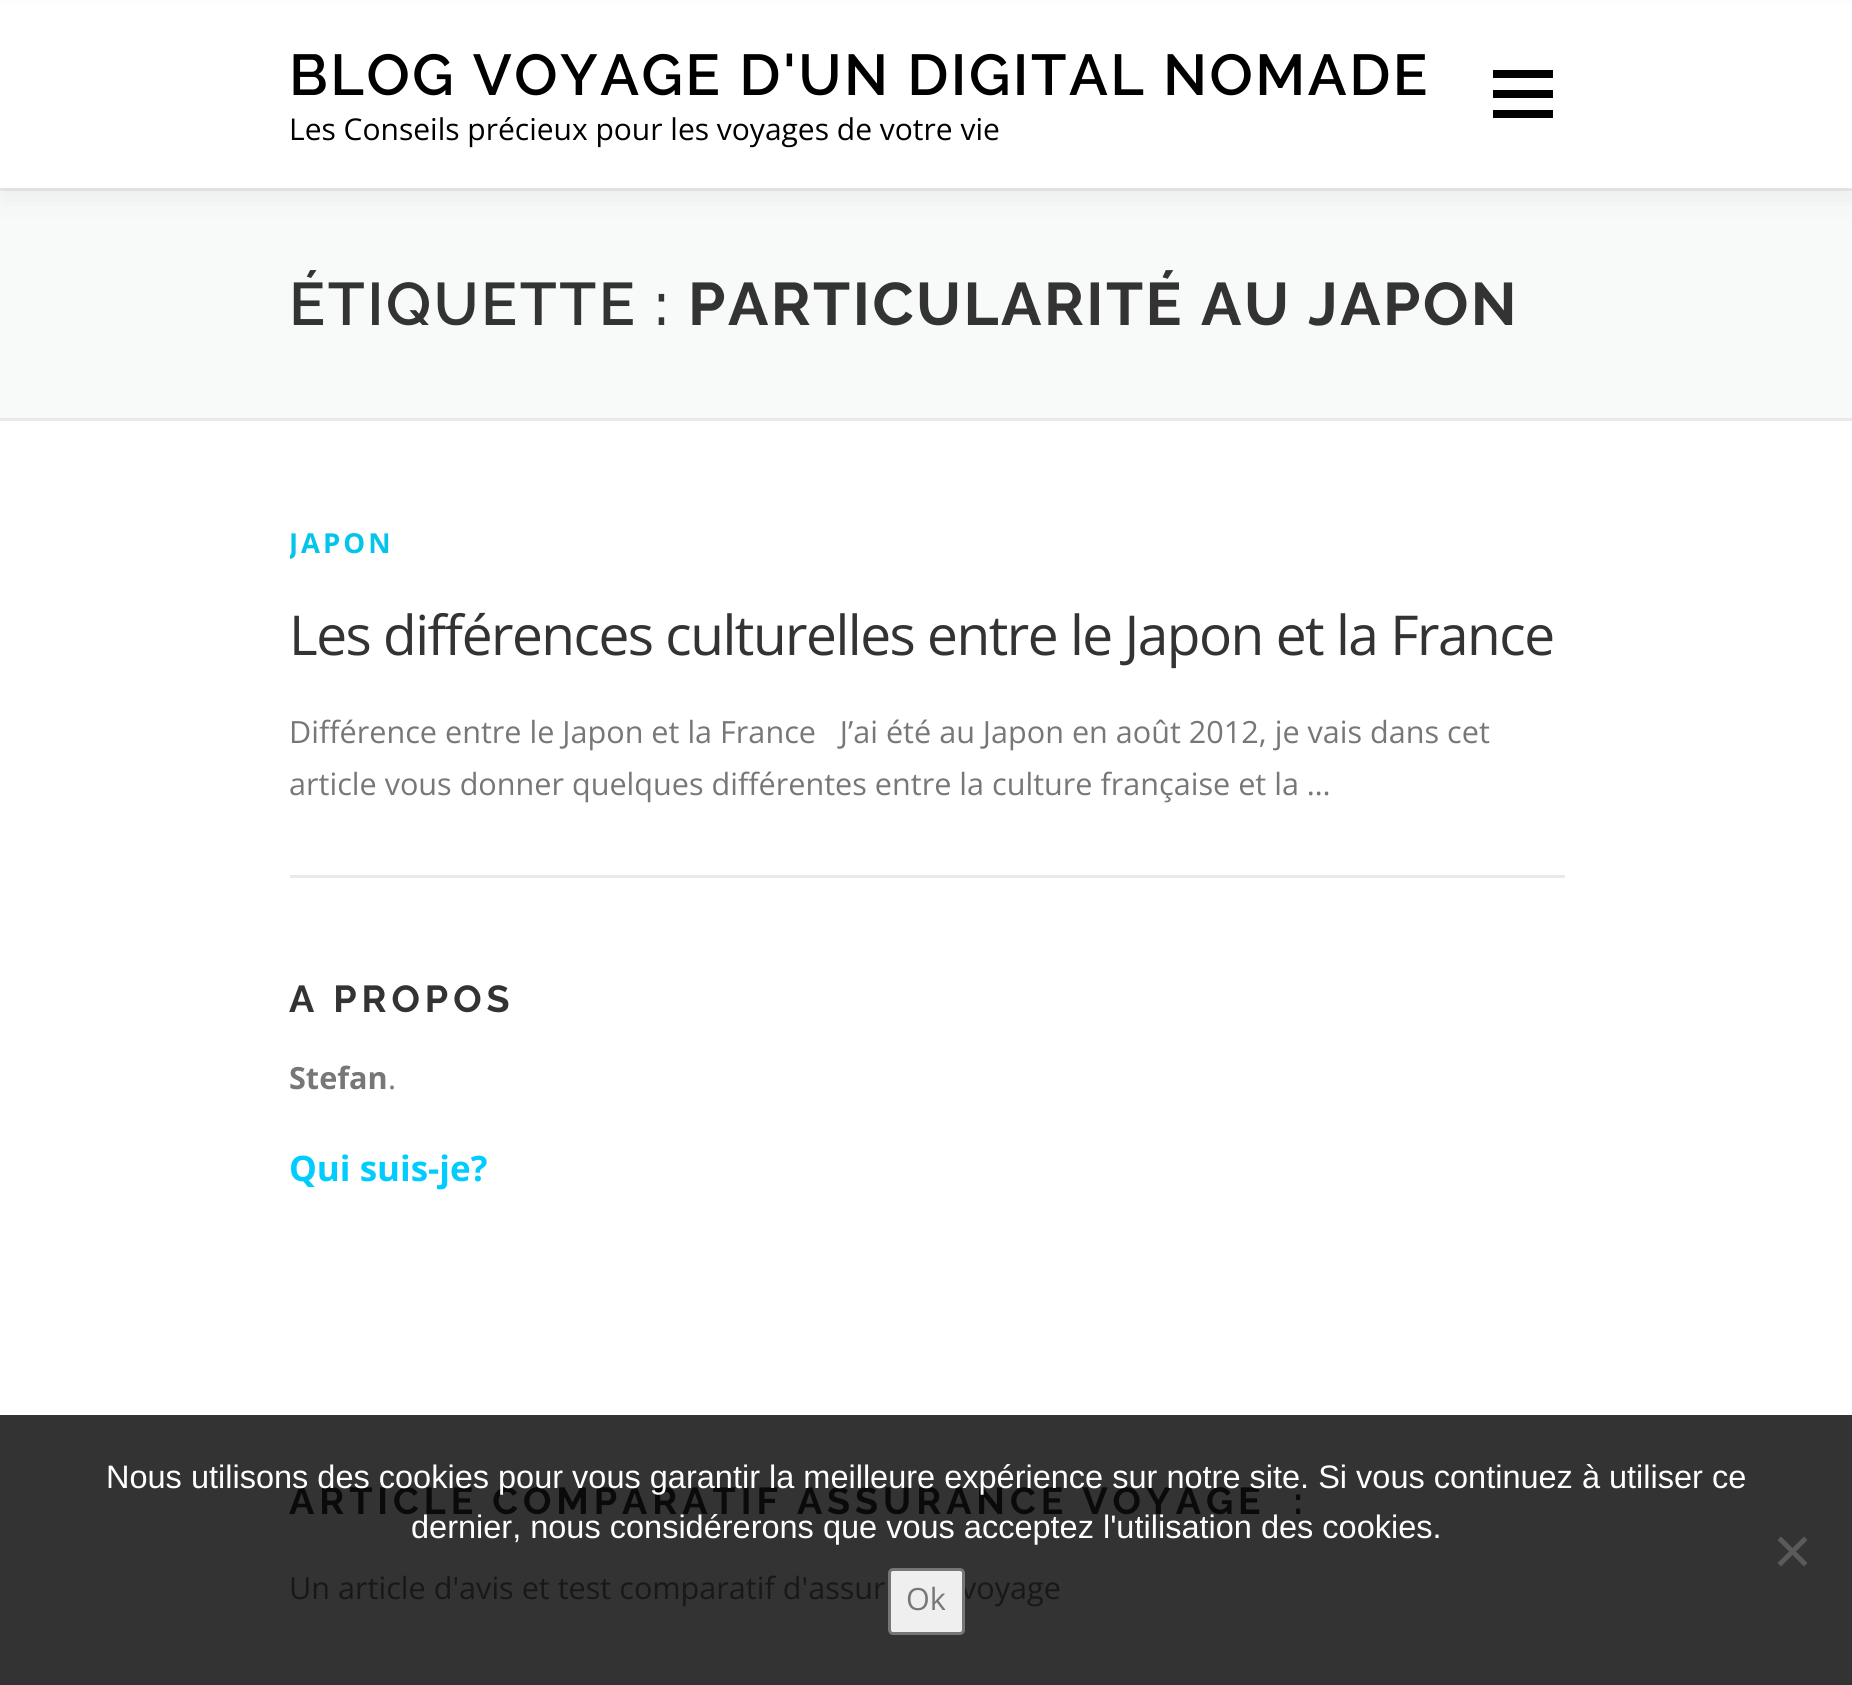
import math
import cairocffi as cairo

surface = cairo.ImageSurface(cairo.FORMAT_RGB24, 1852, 1685)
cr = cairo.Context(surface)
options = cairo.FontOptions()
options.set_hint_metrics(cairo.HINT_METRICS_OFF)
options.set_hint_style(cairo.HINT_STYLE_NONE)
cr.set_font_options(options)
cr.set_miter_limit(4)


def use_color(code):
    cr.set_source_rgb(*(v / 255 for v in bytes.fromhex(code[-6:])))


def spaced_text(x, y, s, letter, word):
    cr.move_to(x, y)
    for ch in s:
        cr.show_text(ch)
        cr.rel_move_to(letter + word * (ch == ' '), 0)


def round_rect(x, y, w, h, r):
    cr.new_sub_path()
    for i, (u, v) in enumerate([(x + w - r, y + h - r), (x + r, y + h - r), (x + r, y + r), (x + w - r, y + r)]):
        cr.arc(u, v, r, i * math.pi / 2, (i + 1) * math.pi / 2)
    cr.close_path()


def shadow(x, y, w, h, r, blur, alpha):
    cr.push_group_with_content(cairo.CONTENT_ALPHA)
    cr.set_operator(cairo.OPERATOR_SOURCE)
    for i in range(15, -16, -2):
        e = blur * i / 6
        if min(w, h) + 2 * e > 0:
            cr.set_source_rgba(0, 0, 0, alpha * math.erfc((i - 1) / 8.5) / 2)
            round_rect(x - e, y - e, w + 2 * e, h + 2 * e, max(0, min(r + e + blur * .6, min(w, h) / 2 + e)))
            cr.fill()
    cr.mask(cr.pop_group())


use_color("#ffffff")
cr.paint()
use_color("#333333")
cr.rectangle(0, 1415, 1852, 270)
cr.fill()
use_color("#f8f9f9")
cr.rectangle(0, 191, 1852, 227)
cr.fill()
use_color("#e9e9e9")
cr.rectangle(0, 188, 1852, 3)
cr.fill()
use_color("#323232")
shadow(0, 13, 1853, 187, 0, 12.5, 0.06)
use_color("#ffffff")
cr.rectangle(0, 3, 1852, 185)
cr.fill()
cr.select_font_face("Raleway SemiBold")
cr.set_font_size(57.5)
use_color("#000000")
spaced_text(289, 95, "BLOG VOYAGE D'UN DIGITAL NOMADE", 2.5, 0)
cr.select_font_face("Open Sans")
cr.set_font_size(30)
cr.move_to(289, 140)
cr.show_text("Les Conseils précieux pour les voyages de votre vie")
cr.rectangle(1493, 90, 60, 8)
cr.fill()
cr.rectangle(1493, 70, 60, 8)
cr.fill()
cr.rectangle(1493, 110, 60, 8)
cr.fill()
use_color("#e9e9e9")
cr.rectangle(0, 418, 1852, 3)
cr.fill()
cr.select_font_face("Raleway SemiBold")
cr.set_font_size(60)
use_color("#333333")
spaced_text(289, 325, "ÉTIQUETTE :", 2.5, 0)
cr.select_font_face("Raleway", cairo.FONT_SLANT_NORMAL, cairo.FONT_WEIGHT_BOLD)
spaced_text(688, 325, "PARTICULARITÉ AU JAPON", 2.5, 0)
use_color("#e9e9e9")
cr.rectangle(290, 875, 1275, 3)
cr.fill()
cr.save()
cr.rectangle(290, 520, 1275, 293)
cr.clip()
cr.select_font_face("Open Sans", cairo.FONT_SLANT_NORMAL, cairo.FONT_WEIGHT_BOLD)
cr.set_font_size(27.5)
use_color("#03c4eb")
spaced_text(289, 553, "JAPON", 3, 0)
cr.restore()
cr.select_font_face("Open Sans")
cr.set_font_size(55)
use_color("#333333")
spaced_text(289, 655, "Les différences culturelles entre le Japon et la France", -1.5, 0)
cr.set_font_size(30.6)
use_color("#777777")
cr.move_to(289, 743)
cr.show_text("Différence entre le Japon et la France   J’ai été au Japon en août 2012, je vais dans cet")
cr.move_to(289, 795)
cr.show_text("article vous donner quelques différentes entre la culture française et la …")
cr.select_font_face("Raleway", cairo.FONT_SLANT_NORMAL, cairo.FONT_WEIGHT_BOLD)
cr.set_font_size(37.5)
use_color("#333333")
spaced_text(289, 1012, "A PROPOS", 5, 0)
cr.select_font_face("Open Sans", cairo.FONT_SLANT_NORMAL, cairo.FONT_WEIGHT_BOLD)
cr.set_font_size(30.6)
use_color("#777777")
cr.move_to(289, 1089)
cr.show_text("Stefan")
cr.select_font_face("Open Sans")
cr.move_to(388, 1089)
cr.show_text(".")
cr.select_font_face("Open Sans", cairo.FONT_SLANT_NORMAL, cairo.FONT_WEIGHT_BOLD)
cr.set_font_size(35)
use_color("#00ccff")
cr.move_to(289, 1181)
cr.show_text("Qui suis-je?")
cr.select_font_face("Raleway", cairo.FONT_SLANT_NORMAL, cairo.FONT_WEIGHT_BOLD)
cr.set_font_size(37.5)
use_color("#0a0a0a")
spaced_text(289, 1514, "ARTICLE COMPARATIF ASSURANCE VOYAGE  :", 5, 0)
cr.select_font_face("Open Sans")
cr.set_font_size(30.6)
use_color("#181818")
cr.move_to(289, 1599)
cr.show_text("Un article d'avis et test comparatif d'assur")
cr.move_to(961, 1599)
cr.show_text("voyage")
cr.select_font_face("Liberation Sans")
cr.set_font_size(32.5)
use_color("#ffffff")
cr.move_to(106, 1488)
cr.show_text("Nous utilisons des cookies pour vous garantir la meilleure expérience sur notre site. Si vous continuez à utiliser ce")
cr.move_to(411, 1538)
cr.show_text("dernier, nous considérerons que vous acceptez l'utilisation des cookies.")
use_color("#5a5a5a")
cr.new_path()
cr.move_to(1804, 1536.5)
cr.line_to(1807.5, 1540)
cr.line_to(1781, 1566.5)
cr.line_to(1777.5, 1563)
cr.close_path()
cr.fill()
cr.new_path()
cr.move_to(1777.5, 1540)
cr.line_to(1781, 1536.5)
cr.line_to(1807.5, 1563)
cr.line_to(1804, 1566.5)
cr.close_path()
cr.fill()
use_color("#efefef")
round_rect(889.5, 1569.5, 74, 64, 3.5)
cr.fill_preserve()
use_color("#767676")
cr.set_line_width(3)
cr.stroke()
cr.select_font_face("Open Sans")
cr.set_font_size(30.6)
use_color("#777777")
cr.move_to(906, 1610)
cr.show_text("Ok")
surface.write_to_png("result.png")
